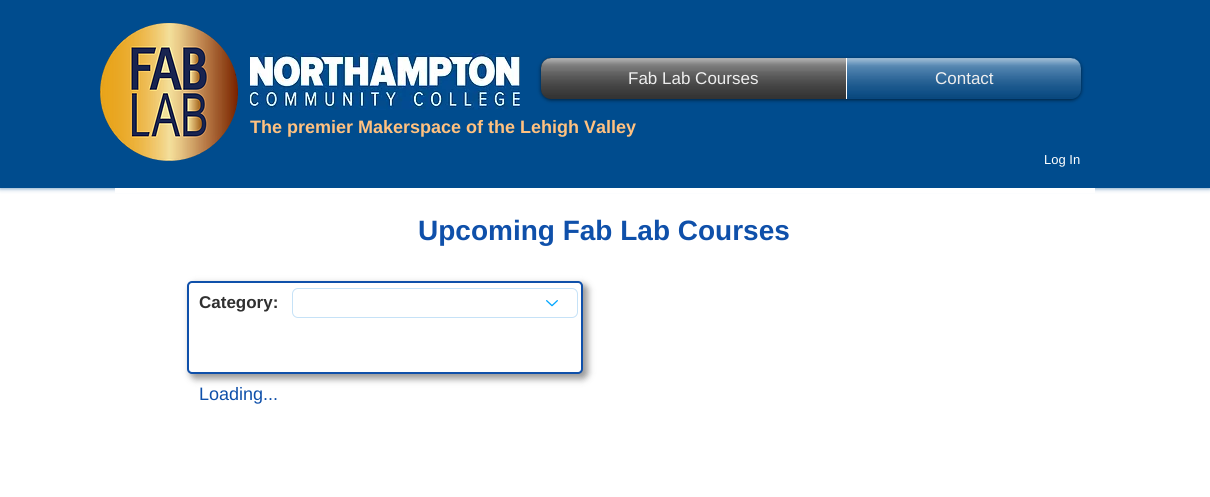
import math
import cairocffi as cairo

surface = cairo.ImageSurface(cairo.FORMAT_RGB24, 1210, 497)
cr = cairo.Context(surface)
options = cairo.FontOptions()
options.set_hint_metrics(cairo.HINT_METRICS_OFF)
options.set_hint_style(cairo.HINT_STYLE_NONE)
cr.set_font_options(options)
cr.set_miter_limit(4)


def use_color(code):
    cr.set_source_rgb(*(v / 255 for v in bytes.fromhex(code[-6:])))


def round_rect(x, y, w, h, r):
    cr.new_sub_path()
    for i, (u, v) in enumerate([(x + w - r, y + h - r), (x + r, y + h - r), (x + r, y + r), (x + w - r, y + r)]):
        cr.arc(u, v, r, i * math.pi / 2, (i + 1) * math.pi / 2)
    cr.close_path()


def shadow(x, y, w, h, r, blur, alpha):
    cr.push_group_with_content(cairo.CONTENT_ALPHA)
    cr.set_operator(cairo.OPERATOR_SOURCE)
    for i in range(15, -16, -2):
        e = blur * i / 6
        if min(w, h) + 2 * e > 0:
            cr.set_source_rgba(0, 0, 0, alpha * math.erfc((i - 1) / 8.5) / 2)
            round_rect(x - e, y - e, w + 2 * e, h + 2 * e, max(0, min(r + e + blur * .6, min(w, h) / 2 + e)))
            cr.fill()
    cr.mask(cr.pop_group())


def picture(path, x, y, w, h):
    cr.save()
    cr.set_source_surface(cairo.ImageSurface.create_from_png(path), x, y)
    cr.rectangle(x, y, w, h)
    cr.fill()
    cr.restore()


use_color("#ffffff")
cr.paint()
use_color("#004c8e")
shadow(0, 0, 1210, 188, 0, 2.5, 0.7)
use_color("#004c8e")
cr.rectangle(0, 0, 1210, 188)
cr.fill()
picture("img1.png", 100, 23, 138, 138)
picture("img2.png", 250, 53, 270, 57)
use_color("#000000")
shadow(541, 59, 540, 41, 10, 2, 0.6)
picture("img3.png", 541, 58, 540, 41)
picture("img4.png", 541, 89, 540, 10)
use_color("#323232")
cr.new_path()
cr.move_to(551, 58)
cr.line_to(846, 58)
cr.line_to(846, 99)
cr.line_to(551, 99)
cr.curve_to(545.5, 99, 541, 94.5, 541, 89)
cr.line_to(541, 68)
cr.curve_to(541, 62.5, 545.5, 58, 551, 58)
cr.close_path()
cr.fill()
cr.select_font_face("Liberation Sans")
cr.set_font_size(17)
use_color("#ffffff")
cr.move_to(628, 84)
cr.show_text("Fab Lab Courses")
picture("img5.png", 541, 58, 305, 41)
picture("img6.png", 541, 71, 305, 28)
use_color("#004c8e")
cr.new_path()
cr.move_to(846, 58)
cr.line_to(1071, 58)
cr.curve_to(1076.5, 58, 1081, 62.5, 1081, 68)
cr.line_to(1081, 89)
cr.curve_to(1081, 94.5, 1076.5, 99, 1071, 99)
cr.line_to(846, 99)
cr.close_path()
cr.fill()
use_color("#ffffff")
cr.rectangle(846, 58, 1, 41)
cr.fill()
cr.move_to(935, 84)
cr.show_text("Contact")
picture("img7.png", 847, 58, 234, 41)
picture("img8.png", 847, 65, 234, 34)
cr.select_font_face("Liberation Sans", cairo.FONT_SLANT_NORMAL, cairo.FONT_WEIGHT_BOLD)
cr.set_font_size(18)
use_color("#ffc180")
cr.move_to(250, 133)
cr.show_text("The premier Makerspace of the Lehigh Valley")
cr.select_font_face("Liberation Sans")
cr.set_font_size(13)
use_color("#ffffff")
cr.move_to(1044, 164)
cr.show_text("Log In")
cr.rectangle(115, 188, 980, 5)
cr.fill()
cr.select_font_face("Liberation Sans", cairo.FONT_SLANT_NORMAL, cairo.FONT_WEIGHT_BOLD)
cr.set_font_size(28)
use_color("#0f50aa")
cr.move_to(418, 240)
cr.show_text("Upcoming Fab Lab Courses")
use_color("#000000")
shadow(190, 284, 398, 95, 6, 3.5, 0.4)
use_color("#ffffff")
round_rect(188, 282, 394, 91, 4)
cr.fill_preserve()
use_color("#0f50aa")
cr.stroke()
cr.set_font_size(17)
use_color("#303030")
cr.move_to(199, 308)
cr.show_text("Category:")
round_rect(292.5, 288.5, 285, 29, 5.5)
use_color("#c6e2f7")
cr.set_line_width(1)
cr.stroke()
picture("img9.png", 546, 300, 12, 7)
cr.select_font_face("Liberation Sans")
cr.set_font_size(18)
use_color("#0f50aa")
cr.move_to(199, 400)
cr.show_text("Loading...")
surface.write_to_png("result.png")
